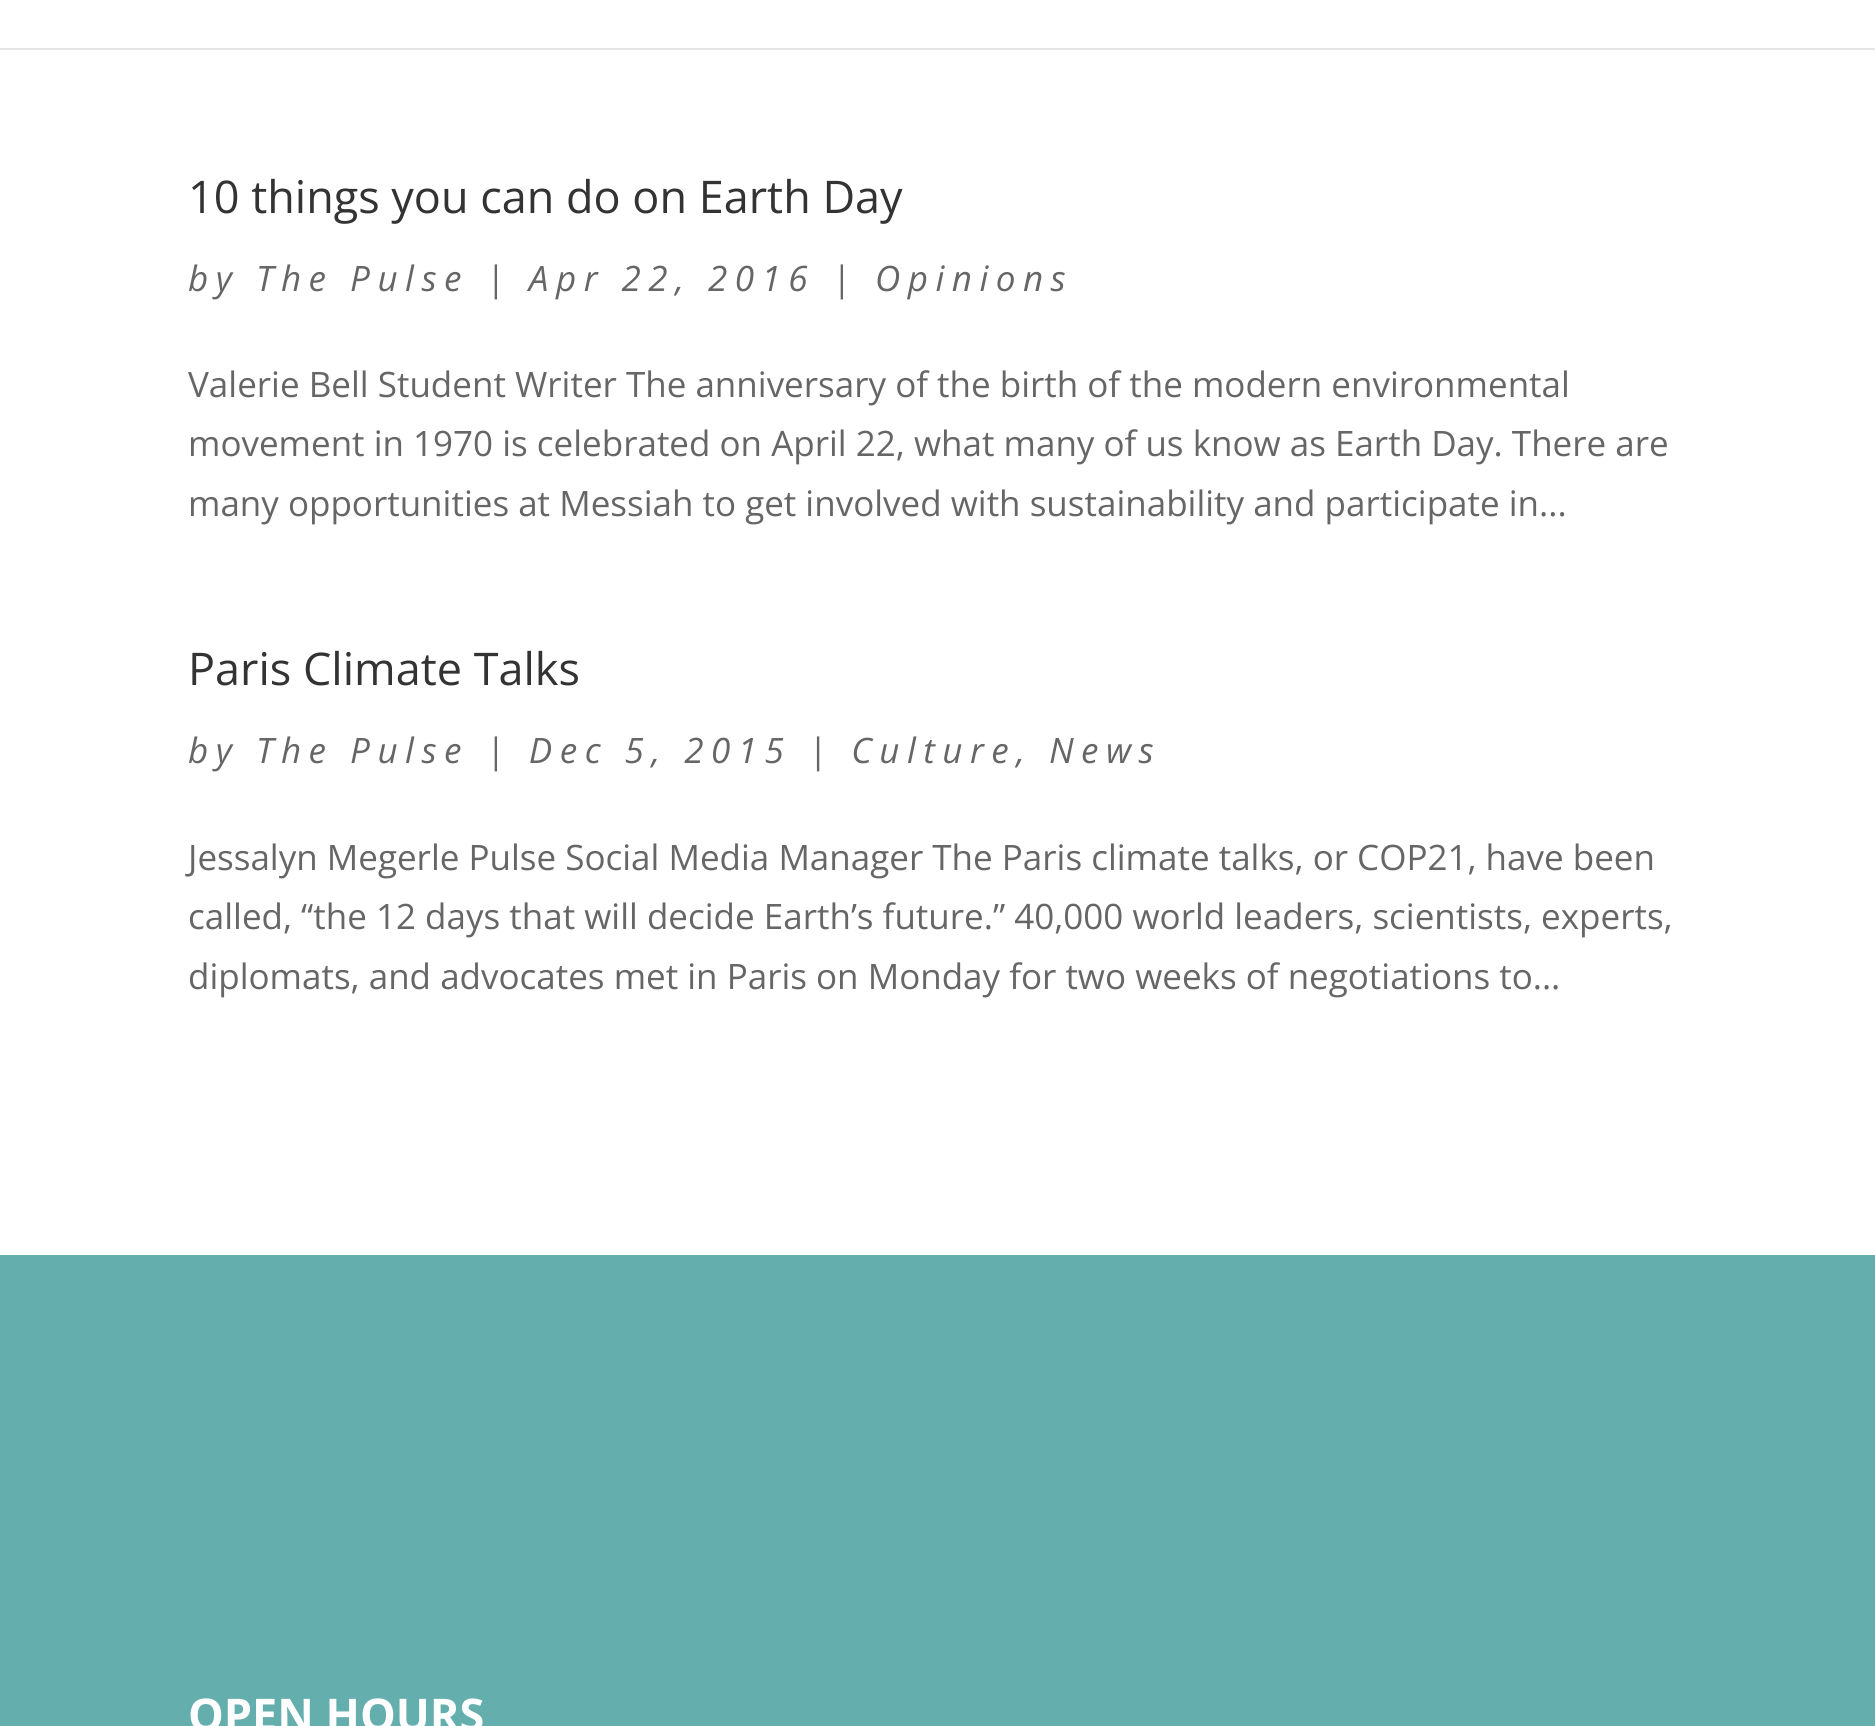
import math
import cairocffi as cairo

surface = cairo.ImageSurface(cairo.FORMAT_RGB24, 1875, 1726)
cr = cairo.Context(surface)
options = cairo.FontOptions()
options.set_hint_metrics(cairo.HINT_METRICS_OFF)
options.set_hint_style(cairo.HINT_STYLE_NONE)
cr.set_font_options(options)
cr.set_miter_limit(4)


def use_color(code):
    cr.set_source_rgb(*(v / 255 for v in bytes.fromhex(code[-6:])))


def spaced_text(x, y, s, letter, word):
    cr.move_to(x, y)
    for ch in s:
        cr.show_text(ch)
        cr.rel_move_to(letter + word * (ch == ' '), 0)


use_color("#ffffff")
cr.paint()
use_color("#e6e6e6")
cr.rectangle(0, 48, 1875, 2)
cr.fill()
cr.select_font_face("Open Sans")
cr.set_font_size(45)
use_color("#333333")
cr.move_to(188, 213)
cr.show_text("10 things you can do on Earth Day")
cr.select_font_face("Open Sans", cairo.FONT_SLANT_ITALIC)
cr.set_font_size(35)
use_color("#666666")
spaced_text(188, 291, "by The Pulse | Apr 22, 2016 | Opinions", 7.5, 0)
cr.select_font_face("Open Sans")
cr.move_to(188, 397)
cr.show_text("Valerie Bell Student Writer The anniversary of the birth of the modern environmental")
cr.move_to(188, 456)
cr.show_text("movement in 1970 is celebrated on April 22, what many of us know as Earth Day. There are")
cr.move_to(188, 516)
cr.show_text("many opportunities at Messiah to get involved with sustainability and participate in...")
cr.set_font_size(45)
use_color("#333333")
cr.move_to(188, 685)
cr.show_text("Paris Climate Talks")
cr.select_font_face("Open Sans", cairo.FONT_SLANT_ITALIC)
cr.set_font_size(35)
use_color("#666666")
spaced_text(188, 763, "by The Pulse | Dec 5, 2015 | Culture, News", 7.5, 0)
cr.select_font_face("Open Sans")
cr.move_to(188, 870)
cr.show_text("Jessalyn Megerle Pulse Social Media Manager The Paris climate talks, or COP21, have been")
cr.move_to(188, 929)
cr.show_text("called, “the 12 days that will decide Earth’s future.” 40,000 world leaders, scientists, experts,")
cr.move_to(188, 989)
cr.show_text("diplomats, and advocates met in Paris on Monday for two weeks of negotiations to...")
use_color("#64afad")
cr.rectangle(0, 1255, 1875, 471)
cr.fill()
cr.select_font_face("Open Sans", cairo.FONT_SLANT_NORMAL, cairo.FONT_WEIGHT_BOLD)
cr.set_font_size(45)
use_color("#ffffff")
cr.move_to(188, 1731)
cr.show_text("OPEN HOURS")
surface.write_to_png("result.png")
